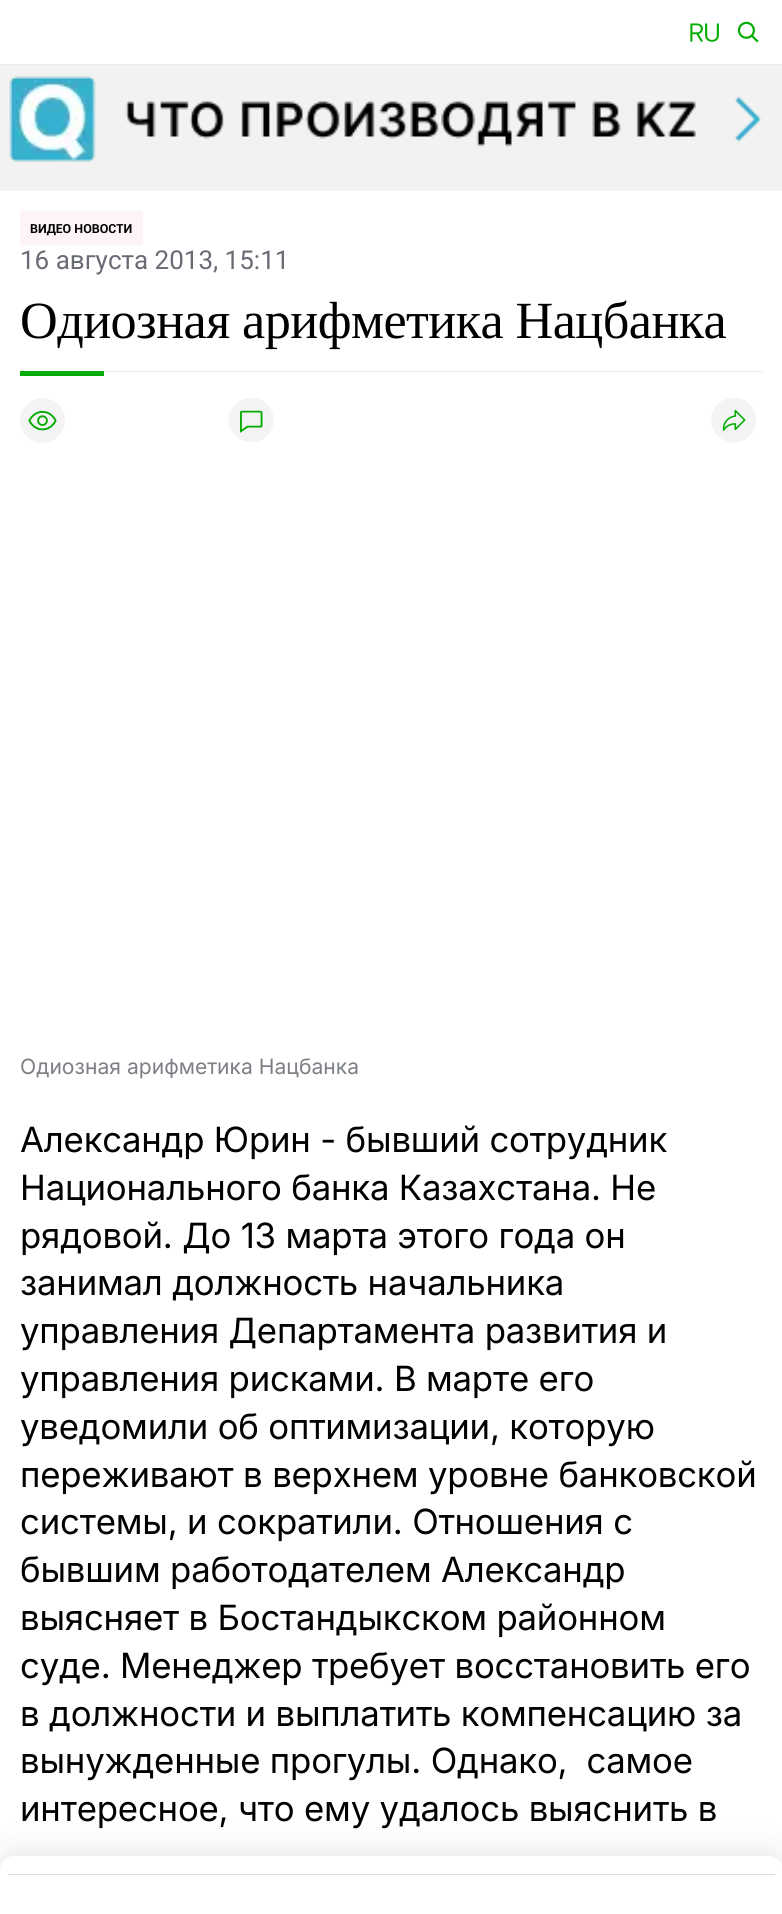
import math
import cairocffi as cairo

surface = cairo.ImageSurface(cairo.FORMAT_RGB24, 782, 1914)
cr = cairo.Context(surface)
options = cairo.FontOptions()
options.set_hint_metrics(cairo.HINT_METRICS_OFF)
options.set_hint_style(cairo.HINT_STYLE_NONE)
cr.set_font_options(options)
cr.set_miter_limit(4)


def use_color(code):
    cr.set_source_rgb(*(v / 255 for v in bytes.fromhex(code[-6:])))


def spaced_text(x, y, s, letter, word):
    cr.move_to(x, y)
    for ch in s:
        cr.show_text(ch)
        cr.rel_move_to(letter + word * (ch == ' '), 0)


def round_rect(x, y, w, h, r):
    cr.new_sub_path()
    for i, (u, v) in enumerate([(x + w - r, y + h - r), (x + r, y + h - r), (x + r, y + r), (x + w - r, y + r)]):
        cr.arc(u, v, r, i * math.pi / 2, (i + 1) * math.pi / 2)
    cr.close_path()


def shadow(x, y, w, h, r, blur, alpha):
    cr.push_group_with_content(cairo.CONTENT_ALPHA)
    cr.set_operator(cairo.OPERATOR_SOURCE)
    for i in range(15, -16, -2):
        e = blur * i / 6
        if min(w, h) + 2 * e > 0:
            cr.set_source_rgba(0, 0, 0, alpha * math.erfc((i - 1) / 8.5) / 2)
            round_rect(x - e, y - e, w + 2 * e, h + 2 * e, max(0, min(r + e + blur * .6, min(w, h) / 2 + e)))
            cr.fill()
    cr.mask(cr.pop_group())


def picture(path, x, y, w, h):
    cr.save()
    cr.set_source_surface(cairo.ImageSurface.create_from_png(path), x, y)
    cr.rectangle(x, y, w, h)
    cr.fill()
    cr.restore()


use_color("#f1f2f1")
cr.paint()
use_color("#ffffff")
cr.rectangle(0, 0, 782, 64)
cr.fill()
use_color("#eaeaeb")
cr.rectangle(0, 64, 782, 1)
cr.fill()
picture("img1.png", 690, 23, 29, 19)
picture("img2.png", 737, 21, 22, 22)
picture("img3.png", 9, 76, 753, 87)
use_color("#ffffff")
cr.rectangle(0, 191, 782, 1680)
cr.fill()
use_color("#fef3f5")
round_rect(20, 211, 123, 34, 2.5)
cr.fill()
cr.select_font_face("Roboto", cairo.FONT_SLANT_NORMAL, cairo.FONT_WEIGHT_BOLD)
cr.set_font_size(12.5)
use_color("#000000")
cr.move_to(30, 233)
cr.show_text("ВИДЕО НОВОСТИ")
cr.select_font_face("Roboto")
cr.set_font_size(26)
use_color("#696c74")
cr.move_to(20, 269)
cr.show_text("16 августа 2013, 15:11")
use_color("#eaeaeb")
cr.rectangle(104, 371, 659, 1)
cr.fill()
cr.select_font_face("Liberation Serif")
cr.set_font_size(52.2)
use_color("#000000")
spaced_text(20, 338, "Одиозная арифметика Нацбанка", -0.55, 0)
use_color("#03ab02")
cr.rectangle(20, 371, 84, 5)
cr.fill()
picture("img4.png", 20, 398, 45, 45)
picture("img5.png", 229, 398, 45, 44)
picture("img6.png", 711, 398, 45, 45)
cr.select_font_face("Inter")
cr.set_font_size(21.1)
use_color("#7c7f85")
cr.move_to(20, 1074)
cr.show_text("Одиозная арифметика Нацбанка")
cr.set_font_size(34.75)
use_color("#000000")
spaced_text(20, 1152, "Александр Юрин - бывший сотрудник", -0.2, 0)
spaced_text(20, 1200, "Национального банка Казахстана. Не", -0.2, 0)
spaced_text(20, 1248, "рядовой. До 13 марта этого года он", -0.2, 0)
spaced_text(20, 1295, "занимал должность начальника", -0.2, 0)
spaced_text(20, 1343, "управления Департамента развития и", -0.2, 0)
spaced_text(20, 1391, "управления рисками. В марте его", -0.2, 0)
spaced_text(20, 1439, "уведомили об оптимизации, которую", -0.2, 0)
spaced_text(20, 1487, "переживают в верхнем уровне банковской", -0.2, 0)
spaced_text(20, 1534, "системы, и сократили. Отношения с", -0.2, 0)
spaced_text(20, 1582, "бывшим работодателем Александр", -0.2, 0)
spaced_text(20, 1630, "выясняет в Бостандыкском районном", -0.2, 0)
spaced_text(20, 1678, "суде. Менеджер требует восстановить его", -0.2, 0)
spaced_text(20, 1726, "в должности и выплатить компенсацию за", -0.2, 0)
spaced_text(20, 1773, "вынужденные прогулы. Однако,  самое", -0.2, 0)
spaced_text(20, 1821, "интересное, что ему удалось выяснить в", -0.2, 0)
use_color("#000000")
shadow(0, 1856, 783, 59, 15, 19, 0.12)
use_color("#ffffff")
cr.new_path()
cr.move_to(15, 1856)
cr.line_to(768, 1856)
cr.curve_to(776.5, 1856, 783, 1862.5, 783, 1871)
cr.line_to(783, 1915)
cr.line_to(0, 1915)
cr.line_to(0, 1871)
cr.curve_to(0, 1862.5, 6.5, 1856, 15, 1856)
cr.close_path()
cr.fill()
use_color("#dcdcdc")
cr.rectangle(8, 1874, 767, 1)
cr.fill()
surface.write_to_png("result.png")
